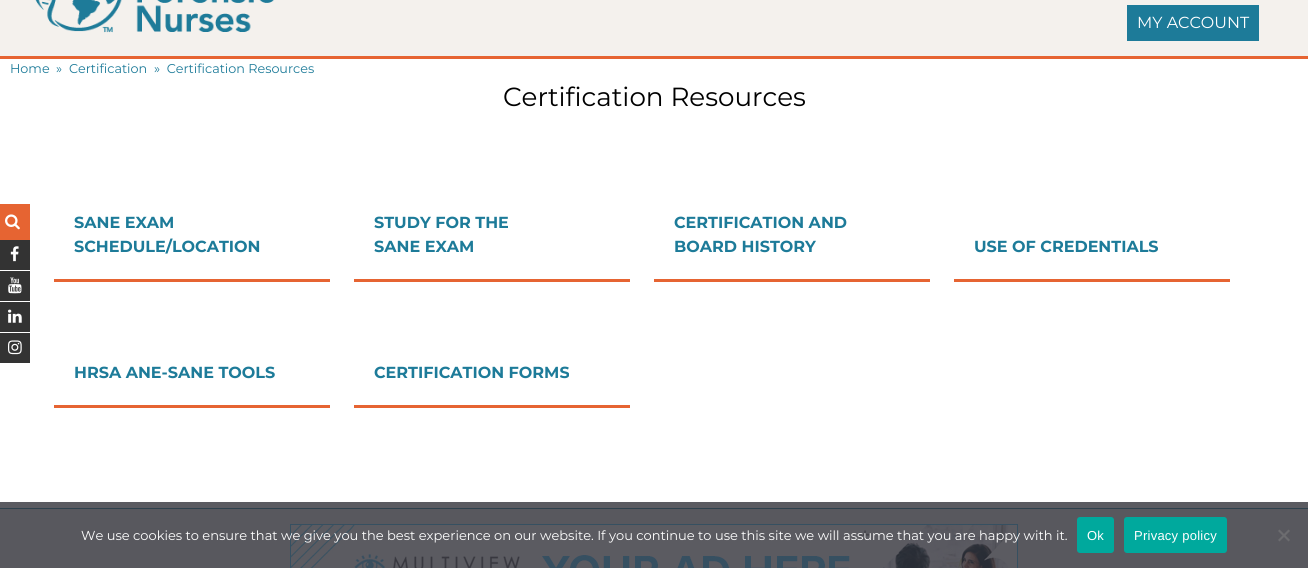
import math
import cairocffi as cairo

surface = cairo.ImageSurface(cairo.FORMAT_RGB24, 1308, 568)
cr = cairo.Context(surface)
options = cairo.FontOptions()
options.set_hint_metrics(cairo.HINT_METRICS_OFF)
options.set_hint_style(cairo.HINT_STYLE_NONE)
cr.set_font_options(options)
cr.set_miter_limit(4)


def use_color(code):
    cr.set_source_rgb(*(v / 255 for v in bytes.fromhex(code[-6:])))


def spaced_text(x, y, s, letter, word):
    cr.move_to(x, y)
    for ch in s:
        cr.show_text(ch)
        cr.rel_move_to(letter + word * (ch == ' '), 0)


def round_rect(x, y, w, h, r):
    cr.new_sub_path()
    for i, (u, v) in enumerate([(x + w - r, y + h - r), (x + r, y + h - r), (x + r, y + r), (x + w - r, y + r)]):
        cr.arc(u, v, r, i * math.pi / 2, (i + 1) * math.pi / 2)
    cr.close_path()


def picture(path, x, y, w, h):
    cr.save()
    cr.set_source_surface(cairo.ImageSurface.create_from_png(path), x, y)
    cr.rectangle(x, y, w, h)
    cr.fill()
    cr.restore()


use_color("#ffffff")
cr.paint()
use_color("#5b5b61")
cr.rectangle(0, 502, 1308, 6)
cr.fill()
use_color("#f4f1ed")
cr.rectangle(0, 0, 1308, 56)
cr.fill()
use_color("#e66432")
cr.rectangle(0, 56, 1308, 3)
cr.fill()
picture("img1.png", 35, 0, 239, 33)
use_color("#1d7b99")
cr.rectangle(1127, 5, 132, 36)
cr.fill()
cr.select_font_face("Montserrat")
cr.set_font_size(16)
use_color("#ffffff")
cr.move_to(1137, 28)
cr.show_text("MY ACCOUNT")
use_color("#e66432")
cr.rectangle(0, 204, 30, 36)
cr.fill()
picture("img2.png", 5, 214, 15, 16)
use_color("#333333")
cr.rectangle(0, 240, 30, 30)
cr.fill()
picture("img3.png", 10, 246, 9, 16)
cr.rectangle(0, 271, 30, 30)
cr.fill()
picture("img4.png", 8, 277, 14, 17)
cr.rectangle(0, 302, 30, 30)
cr.fill()
picture("img5.png", 8, 309, 14, 14)
cr.rectangle(0, 333, 30, 30)
cr.fill()
picture("img6.png", 8, 340, 14, 15)
cr.set_font_size(12.75)
use_color("#1d7b99")
cr.move_to(10, 73)
cr.show_text("Home")
cr.move_to(56, 73)
cr.show_text("»")
cr.move_to(69, 73)
cr.show_text("Certification")
cr.move_to(154, 73)
cr.show_text("»  Certification Resources")
cr.set_font_size(26.2)
use_color("#000000")
cr.move_to(503, 106)
cr.show_text("Certification Resources")
use_color("#e66432")
cr.rectangle(54, 279, 276, 3)
cr.fill()
cr.select_font_face("Montserrat", cairo.FONT_SLANT_NORMAL, cairo.FONT_WEIGHT_BOLD)
cr.set_font_size(16)
use_color("#1d7b99")
cr.move_to(74, 228)
cr.show_text("SANE EXAM")
cr.move_to(74, 252)
cr.show_text("SCHEDULE/LOCATION")
use_color("#e66432")
cr.rectangle(354, 279, 276, 3)
cr.fill()
use_color("#1d7b99")
cr.move_to(374, 228)
cr.show_text("STUDY FOR THE")
cr.move_to(374, 252)
cr.show_text("SANE EXAM")
use_color("#e66432")
cr.rectangle(654, 279, 276, 3)
cr.fill()
use_color("#1d7b99")
cr.move_to(674, 228)
cr.show_text("CERTIFICATION AND")
cr.move_to(674, 252)
cr.show_text("BOARD HISTORY")
use_color("#e66432")
cr.rectangle(954, 279, 276, 3)
cr.fill()
use_color("#1d7b99")
cr.move_to(974, 252)
cr.show_text("USE OF CREDENTIALS")
use_color("#e66432")
cr.rectangle(54, 405, 276, 3)
cr.fill()
use_color("#1d7b99")
cr.move_to(74, 378)
cr.show_text("HRSA ANE-SANE TOOLS")
use_color("#e66432")
cr.rectangle(354, 405, 276, 3)
cr.fill()
use_color("#1d7b99")
cr.move_to(374, 378)
cr.show_text("CERTIFICATION FORMS")
use_color("#58585e")
cr.rectangle(0, 509, 1308, 59)
cr.fill()
use_color("#2e414d")
cr.rectangle(0, 508, 1308, 1)
cr.fill()
picture("img7.png", 290, 524, 728, 44)
cr.select_font_face("Montserrat")
cr.set_font_size(13)
use_color("#ffffff")
cr.move_to(81, 540)
cr.show_text("We use cookies to ensure that we give you the best experience on our website. If you continue to use this site we will assume that you are happy with it.")
use_color("#00a99d")
round_rect(1077, 517, 37, 36, 3)
cr.fill()
cr.select_font_face("Liberation Sans")
use_color("#ffffff")
spaced_text(1087, 540, "Ok", 0.25, 0)
use_color("#00a99d")
round_rect(1124, 517, 103, 36, 3)
cr.fill()
use_color("#ffffff")
spaced_text(1134, 540, "Privacy policy", 0.25, 0)
use_color("#6c6c6f")
cr.new_path()
cr.move_to(1288.5, 529.5)
cr.line_to(1290, 531)
cr.line_to(1279.5, 541.5)
cr.line_to(1278, 540)
cr.close_path()
cr.fill()
cr.new_path()
cr.move_to(1278, 531)
cr.line_to(1279.5, 529.5)
cr.line_to(1290, 540)
cr.line_to(1288.5, 541.5)
cr.close_path()
cr.fill()
surface.write_to_png("result.png")
